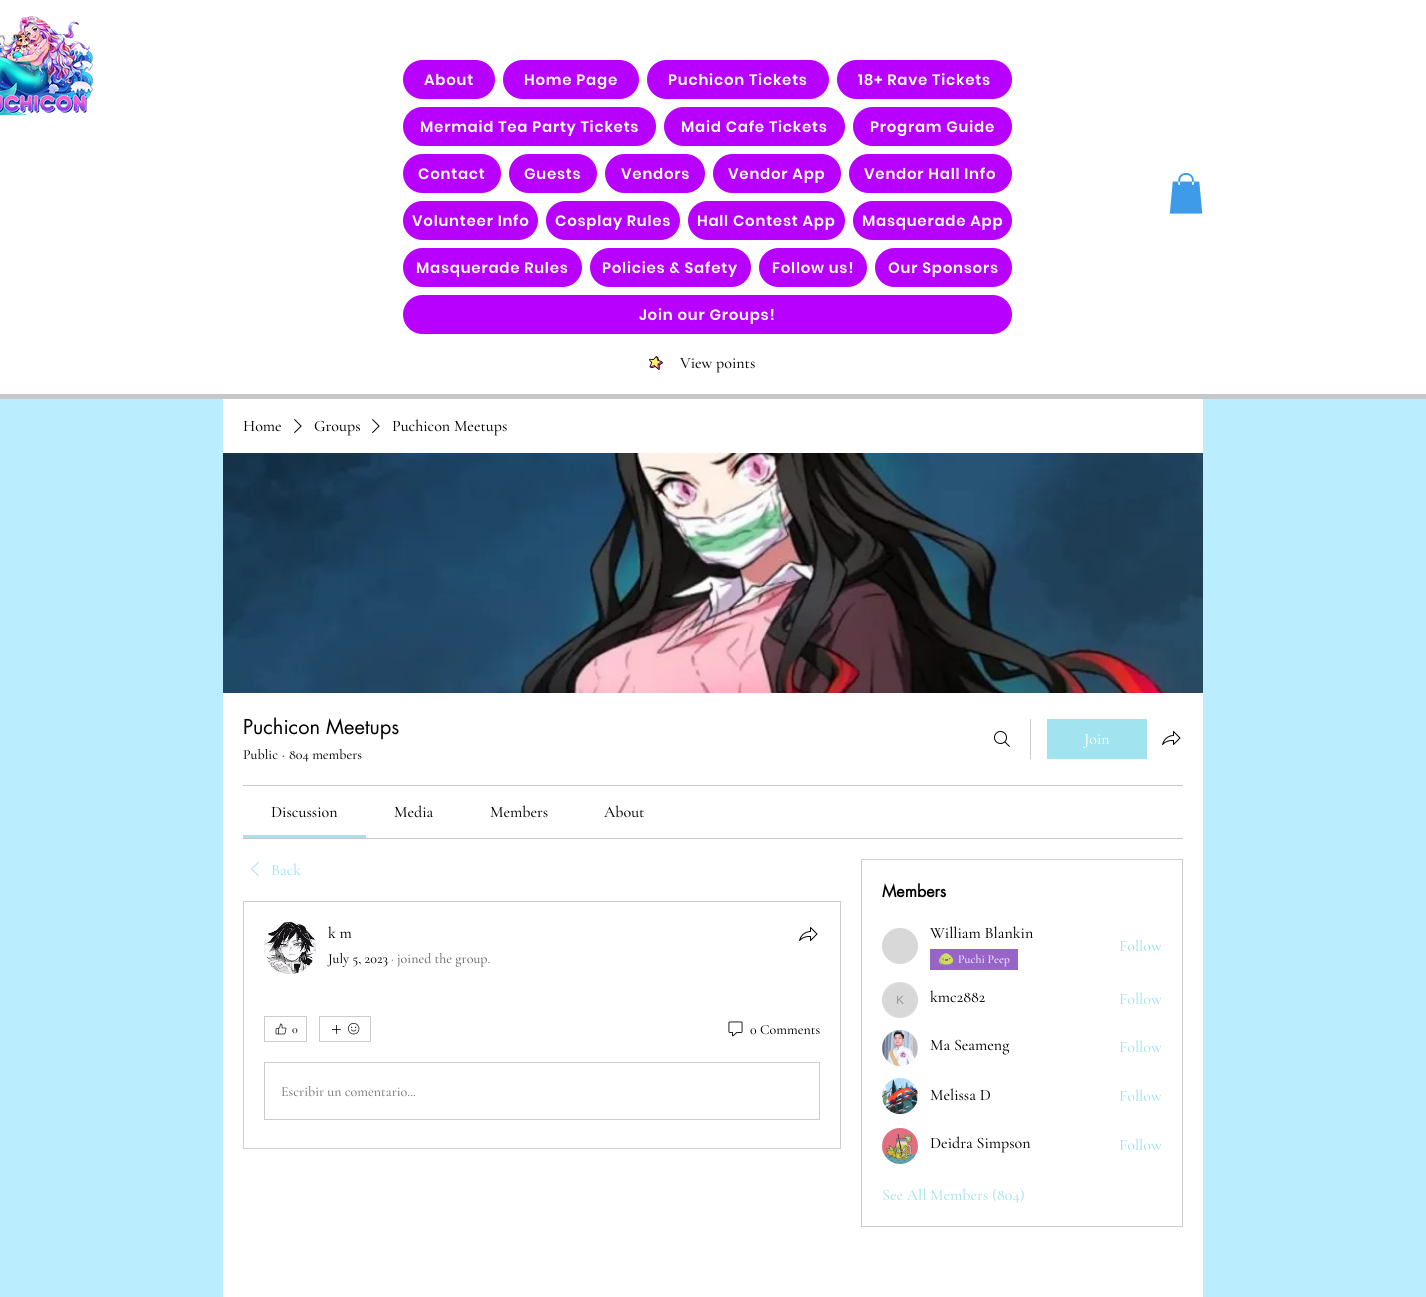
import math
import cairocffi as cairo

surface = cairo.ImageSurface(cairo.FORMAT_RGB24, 1426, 1297)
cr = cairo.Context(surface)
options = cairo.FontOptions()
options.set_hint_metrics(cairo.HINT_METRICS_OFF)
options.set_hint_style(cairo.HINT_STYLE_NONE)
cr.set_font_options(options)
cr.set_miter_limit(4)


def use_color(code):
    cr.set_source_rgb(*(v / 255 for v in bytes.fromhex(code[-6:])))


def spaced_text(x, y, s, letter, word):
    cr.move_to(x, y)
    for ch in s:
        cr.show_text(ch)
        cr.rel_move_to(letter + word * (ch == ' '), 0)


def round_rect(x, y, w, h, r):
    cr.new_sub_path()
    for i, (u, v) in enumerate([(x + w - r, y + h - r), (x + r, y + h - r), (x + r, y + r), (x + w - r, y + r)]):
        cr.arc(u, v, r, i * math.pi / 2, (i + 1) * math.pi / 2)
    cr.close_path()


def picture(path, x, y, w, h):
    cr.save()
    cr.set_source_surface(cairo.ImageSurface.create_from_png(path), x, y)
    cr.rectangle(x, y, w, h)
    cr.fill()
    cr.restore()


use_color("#baedfe")
cr.paint()
use_color("#ffffff")
cr.rectangle(0, 0, 1426, 394)
cr.fill()
use_color("#c7c7c7")
cr.rectangle(0, 394, 1426, 5)
cr.fill()
picture("img1.png", 0, 16, 94, 99)
use_color("#b800ff")
round_rect(403, 60, 92, 39, 19.5)
cr.fill()
cr.select_font_face("Poppins SemiBold")
cr.set_font_size(15)
use_color("#ffffff")
spaced_text(424, 85, "About", 0.75, 0)
use_color("#b800ff")
round_rect(503, 60, 136, 39, 19.5)
cr.fill()
use_color("#ffffff")
spaced_text(524, 85, "Home Page", 0.75, 0)
use_color("#b800ff")
round_rect(647, 60, 182, 39, 19.5)
cr.fill()
use_color("#ffffff")
spaced_text(668, 85, "Puchicon Tickets", 0.75, 0)
use_color("#b800ff")
round_rect(837, 60, 175, 39, 19.5)
cr.fill()
use_color("#ffffff")
spaced_text(858, 85, "18+ Rave Tickets", 0.75, 0)
use_color("#b800ff")
round_rect(403, 107, 253, 39, 19.5)
cr.fill()
use_color("#ffffff")
spaced_text(420, 132, "Mermaid Tea Party Tickets", 0.75, 0)
use_color("#b800ff")
round_rect(664, 107, 181, 39, 19.5)
cr.fill()
use_color("#ffffff")
spaced_text(681, 132, "Maid Cafe Tickets", 0.75, 0)
use_color("#b800ff")
round_rect(853, 107, 159, 39, 19.5)
cr.fill()
use_color("#ffffff")
spaced_text(870, 132, "Program Guide", 0.75, 0)
use_color("#b800ff")
round_rect(403, 154, 98, 39, 19.5)
cr.fill()
use_color("#ffffff")
spaced_text(418, 179, "Contact", 0.75, 0)
use_color("#b800ff")
round_rect(509, 154, 88, 39, 19.5)
cr.fill()
use_color("#ffffff")
spaced_text(524, 179, "Guests", 0.75, 0)
use_color("#b800ff")
round_rect(605, 154, 100, 39, 19.5)
cr.fill()
use_color("#ffffff")
spaced_text(621, 179, "Vendors", 0.75, 0)
use_color("#b800ff")
round_rect(713, 154, 128, 39, 19.5)
cr.fill()
use_color("#ffffff")
spaced_text(728, 179, "Vendor App", 0.75, 0)
use_color("#b800ff")
round_rect(849, 154, 163, 39, 19.5)
cr.fill()
use_color("#ffffff")
spaced_text(864, 179, "Vendor Hall Info", 0.75, 0)
use_color("#b800ff")
round_rect(403, 201, 135, 39, 19.5)
cr.fill()
use_color("#ffffff")
spaced_text(412, 226, "Volunteer Info", 0.75, 0)
use_color("#b800ff")
round_rect(546, 201, 134, 39, 19.5)
cr.fill()
use_color("#ffffff")
spaced_text(555, 226, "Cosplay Rules", 0.75, 0)
use_color("#b800ff")
round_rect(688, 201, 157, 39, 19.5)
cr.fill()
use_color("#ffffff")
spaced_text(697, 226, "Hall Contest App", 0.75, 0)
use_color("#b800ff")
round_rect(853, 201, 159, 39, 19.5)
cr.fill()
use_color("#ffffff")
spaced_text(862, 226, "Masquerade App", 0.75, 0)
use_color("#b800ff")
round_rect(403, 248, 179, 39, 19.5)
cr.fill()
use_color("#ffffff")
spaced_text(416, 273, "Masquerade Rules", 0.75, 0)
use_color("#b800ff")
round_rect(590, 248, 161, 39, 19.5)
cr.fill()
use_color("#ffffff")
spaced_text(602, 273, "Policies & Safety", 0.75, 0)
use_color("#b800ff")
round_rect(759, 248, 108, 39, 19.5)
cr.fill()
use_color("#ffffff")
spaced_text(772, 273, "Follow us!", 0.75, 0)
use_color("#b800ff")
round_rect(875, 248, 137, 39, 19.5)
cr.fill()
use_color("#ffffff")
spaced_text(888, 273, "Our Sponsors", 0.75, 0)
use_color("#b800ff")
round_rect(403, 295, 609, 39, 19.5)
cr.fill()
use_color("#ffffff")
spaced_text(639, 320, "Join our Groups!", 0.75, 0)
picture("img2.png", 1169, 173, 34, 41)
picture("img3.png", 649, 356, 14, 14)
cr.select_font_face("Cormorant Garamond Medium")
cr.set_font_size(16)
use_color("#000000")
cr.move_to(680, 368)
cr.show_text("View points")
use_color("#ffffff")
cr.rectangle(223, 399, 980, 898)
cr.fill()
use_color("#000000")
cr.move_to(243, 431)
cr.show_text("Home")
picture("img4.png", 294, 419, 8, 14)
cr.move_to(314, 431)
cr.show_text("Groups")
picture("img4.png", 372, 419, 8, 14)
cr.move_to(392, 431)
cr.show_text("Puchicon Meetups")
picture("img5.png", 223, 453, 980, 240)
cr.select_font_face("futura")
cr.set_font_size(20)
cr.move_to(243, 734)
cr.show_text("Puchicon Meetups")
cr.select_font_face("Cormorant Garamond Medium")
cr.set_font_size(14)
cr.move_to(243, 759)
cr.show_text("Public")
cr.move_to(282, 759)
cr.show_text("·")
cr.move_to(289, 759)
cr.show_text("804 members")
picture("img6.png", 994, 731, 16, 16)
use_color("#cccccc")
cr.rectangle(1030, 719, 1, 40)
cr.fill()
use_color("#a1e3ef")
cr.rectangle(1047, 719, 100, 40)
cr.fill()
cr.set_font_size(16)
use_color("#ffffff")
cr.move_to(1084, 744)
cr.show_text("Join")
picture("img7.png", 1162, 731, 19, 14)
use_color("#c7c7c7")
cr.rectangle(243, 785, 940, 1)
cr.fill()
cr.rectangle(243, 838, 940, 1)
cr.fill()
use_color("#a1e3ef")
cr.rectangle(243, 835, 123, 3)
cr.fill()
use_color("#000000")
cr.move_to(271, 817)
cr.show_text("Discussion")
cr.move_to(394, 817)
cr.show_text("Media")
cr.move_to(490, 817)
cr.show_text("Members")
cr.move_to(604, 817)
cr.show_text("About")
picture("img8.png", 251, 862, 8, 14)
use_color("#a1e3ef")
cr.move_to(271, 875)
cr.show_text("Back")
cr.rectangle(243.5, 901.5, 597, 247)
use_color("#cccccc")
cr.set_line_width(1)
cr.stroke()
use_color("#d8d8d8")
cr.arc(290, 948, 26, 0, 2 * math.pi)
cr.fill()
picture("img9.png", 264, 922, 52, 52)
use_color("#000000")
cr.move_to(328, 938)
cr.show_text("k m")
cr.set_font_size(14)
cr.move_to(328, 963)
cr.show_text("July 5, 2023")
use_color("#666666")
cr.move_to(391, 963)
cr.show_text("· joined the group.")
picture("img7.png", 799, 927, 19, 14)
cr.rectangle(264.5, 1016.5, 42, 25)
use_color("#cccccc")
cr.stroke()
picture("img10.png", 275, 1023, 12, 12)
cr.set_font_size(12)
use_color("#000000")
cr.move_to(292, 1033)
cr.show_text("0")
cr.rectangle(319.5, 1016.5, 51, 25)
use_color("#cccccc")
cr.stroke()
picture("img11.png", 332, 1025, 9, 9)
picture("img12.png", 348, 1023, 12, 12)
picture("img13.png", 728, 1021, 15, 16)
cr.set_font_size(14)
use_color("#000000")
cr.move_to(750, 1034)
cr.show_text("0 Comments")
cr.rectangle(264.5, 1062.5, 555, 57)
use_color("#cccccc")
cr.stroke()
use_color("#757575")
cr.move_to(281, 1096)
cr.show_text("Escribir un comentario...")
cr.rectangle(861.5, 859.5, 321, 367)
use_color("#cccccc")
cr.stroke()
cr.select_font_face("futura", cairo.FONT_SLANT_NORMAL, cairo.FONT_WEIGHT_BOLD)
cr.set_font_size(16)
use_color("#000000")
cr.move_to(882, 897)
cr.show_text("Members")
use_color("#d8d8d8")
cr.new_path()
cr.arc(900, 946, 18, 0, 2 * math.pi)
cr.fill()
cr.select_font_face("Cormorant Garamond Medium")
use_color("#000000")
cr.move_to(930, 938)
cr.show_text("William Blankin")
use_color("#9764c7")
cr.rectangle(930, 949, 88, 21)
cr.fill()
picture("img14.png", 938, 953, 16, 12)
cr.set_font_size(12)
use_color("#ffffff")
cr.move_to(958, 963)
cr.show_text("Puchi Peep")
cr.set_font_size(16)
use_color("#a1e3ef")
cr.move_to(1119, 951)
cr.show_text("Follow")
use_color("#d8d8d8")
cr.new_path()
cr.arc(900, 1000, 18, 0, 2 * math.pi)
cr.fill()
cr.select_font_face("Liberation Sans")
cr.set_font_size(12)
use_color("#979797")
cr.move_to(896, 1004)
cr.show_text("K")
cr.select_font_face("Cormorant Garamond Medium")
cr.set_font_size(16)
use_color("#000000")
cr.move_to(930, 1002)
cr.show_text("kmc2882")
use_color("#a1e3ef")
cr.move_to(1119, 1004)
cr.show_text("Follow")
picture("img15.png", 882, 1030, 36, 36)
use_color("#000000")
cr.move_to(930, 1050)
cr.show_text("Ma Seameng")
use_color("#a1e3ef")
cr.move_to(1119, 1052)
cr.show_text("Follow")
picture("img16.png", 882, 1078, 36, 36)
use_color("#000000")
cr.move_to(930, 1100)
cr.show_text("Melissa D")
use_color("#a1e3ef")
cr.move_to(1119, 1101)
cr.show_text("Follow")
picture("img17.png", 882, 1128, 36, 36)
use_color("#000000")
cr.move_to(930, 1148)
cr.show_text("Deidra Simpson")
use_color("#a1e3ef")
cr.move_to(1119, 1150)
cr.show_text("Follow")
cr.move_to(882, 1200)
cr.show_text("See All Members (804)")
surface.write_to_png("result.png")
